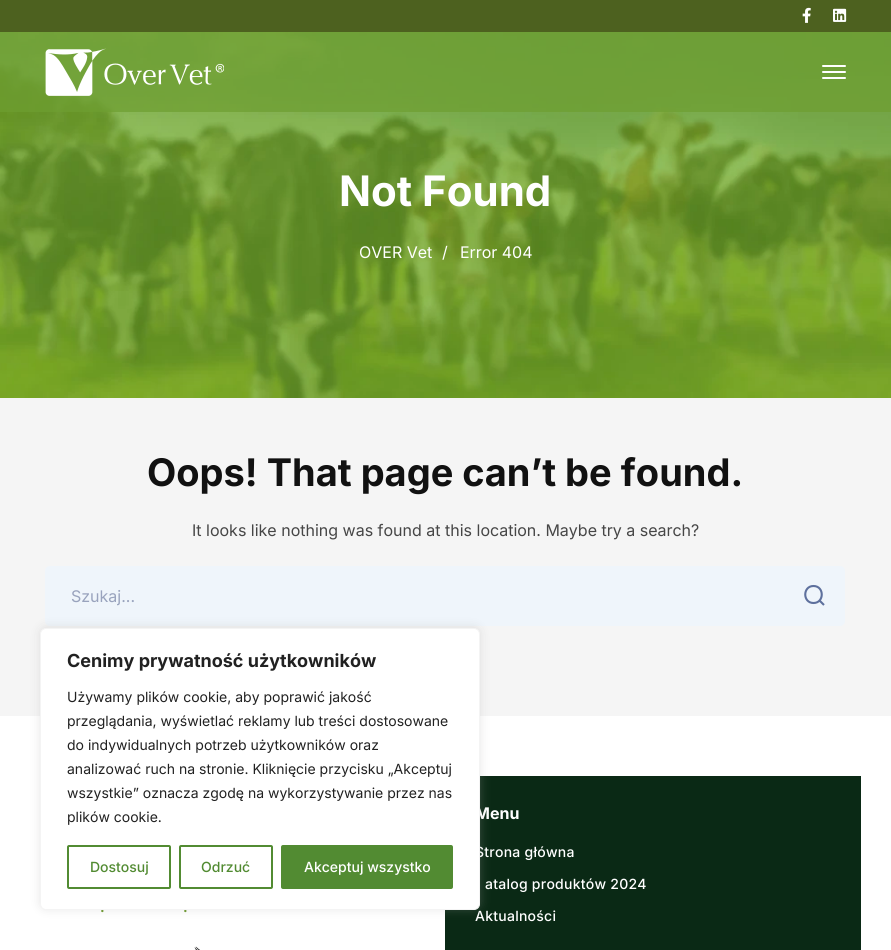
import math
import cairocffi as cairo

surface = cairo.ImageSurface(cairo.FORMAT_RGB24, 891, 950)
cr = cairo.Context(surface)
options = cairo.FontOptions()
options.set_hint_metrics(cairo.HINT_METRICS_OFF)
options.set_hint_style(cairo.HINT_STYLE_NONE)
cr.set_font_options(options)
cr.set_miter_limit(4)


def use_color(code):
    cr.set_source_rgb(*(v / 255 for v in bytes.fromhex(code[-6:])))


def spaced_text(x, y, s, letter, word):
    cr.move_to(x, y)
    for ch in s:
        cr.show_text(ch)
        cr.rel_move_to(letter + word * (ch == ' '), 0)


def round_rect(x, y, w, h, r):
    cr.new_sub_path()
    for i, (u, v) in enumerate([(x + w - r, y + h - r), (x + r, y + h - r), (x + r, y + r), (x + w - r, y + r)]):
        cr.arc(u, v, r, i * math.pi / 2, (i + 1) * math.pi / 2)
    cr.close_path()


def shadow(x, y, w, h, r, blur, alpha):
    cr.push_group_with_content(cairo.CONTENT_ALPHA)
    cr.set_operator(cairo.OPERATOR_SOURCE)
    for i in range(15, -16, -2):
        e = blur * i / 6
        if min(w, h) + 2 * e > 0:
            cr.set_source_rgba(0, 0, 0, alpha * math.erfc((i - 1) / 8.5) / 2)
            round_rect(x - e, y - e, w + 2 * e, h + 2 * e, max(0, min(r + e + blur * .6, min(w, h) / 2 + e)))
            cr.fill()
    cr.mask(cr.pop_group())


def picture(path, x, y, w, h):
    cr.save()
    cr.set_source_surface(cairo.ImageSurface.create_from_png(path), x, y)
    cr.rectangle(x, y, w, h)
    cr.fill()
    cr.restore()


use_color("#ffffff")
cr.paint()
use_color("#4d611f")
cr.rectangle(0, 0, 891, 32)
cr.fill()
picture("img1.png", 802, 7, 9, 16)
picture("img2.png", 833, 8, 14, 14)
picture("img4.png", 0, 32, 891, 366)
cr.set_source_rgba(0.435, 0.624, 0.192, 0.7)
cr.rectangle(0, 32, 891, 80)
cr.fill()
picture("img3.png", 45, 48, 179, 48)
use_color("#ffffff")
round_rect(822, 65, 24, 2, 1)
cr.fill()
round_rect(822, 71, 24, 2, 1)
cr.fill()
round_rect(822, 77, 24, 2, 1)
cr.fill()
cr.select_font_face("Inter", cairo.FONT_SLANT_NORMAL, cairo.FONT_WEIGHT_BOLD)
cr.set_font_size(42)
cr.move_to(339, 206)
cr.show_text("Not Found")
cr.select_font_face("Inter")
cr.set_font_size(16)
cr.move_to(359, 258)
cr.show_text("OVER Vet")
cr.move_to(442, 258)
cr.show_text("/")
cr.move_to(460, 258)
cr.show_text("Error 404")
use_color("#f5f5f5")
cr.rectangle(0, 398, 891, 318)
cr.fill()
cr.select_font_face("Inter", cairo.FONT_SLANT_NORMAL, cairo.FONT_WEIGHT_BOLD)
cr.set_font_size(38)
use_color("#111111")
cr.move_to(147, 486)
cr.show_text("Oops! That page can’t be found.")
cr.select_font_face("Inter")
cr.set_font_size(16)
use_color("#464646")
cr.move_to(192, 536)
cr.show_text("It looks like nothing was found at this location. Maybe try a search?")
use_color("#eff5fb")
round_rect(45, 566, 800, 60, 5)
cr.fill()
use_color("#99a3bd")
cr.move_to(71, 602)
cr.show_text("Szukaj...")
cr.new_path()
cr.move_to(813.5, 586)
cr.curve_to(824.5, 586, 824.5, 603, 813.5, 603)
cr.curve_to(802.5, 603, 802.5, 586, 813.5, 586)
cr.close_path()
cr.move_to(824, 605)
cr.line_to(819.5, 600.5)
use_color("#5e709d")
cr.set_line_width(2.1)
cr.stroke()
cr.select_font_face("Inter", cairo.FONT_SLANT_NORMAL, cairo.FONT_WEIGHT_BOLD)
cr.set_font_size(14)
use_color("#6a972a")
cr.move_to(100, 912)
cr.show_text(".")
cr.move_to(183, 912)
cr.show_text(".")
picture("img5.png", 194, 946, 6, 4)
use_color("#0a2915")
cr.rectangle(445, 776, 416, 174)
cr.fill()
cr.set_font_size(16)
use_color("#ffffff")
cr.move_to(475, 819)
cr.show_text("Menu")
cr.select_font_face("Inter Medium")
cr.set_font_size(14)
spaced_text(475, 857, "Strona główna", 0.25, 0)
spaced_text(485, 889, "atalog produktów 2024", 0.25, 0)
spaced_text(475, 921, "Aktualności", 0.25, 0)
use_color("#acabab")
shadow(40, 627, 440, 282, 6, 5, 0.3)
use_color("#ffffff")
round_rect(40.5, 628.5, 439, 281, 5.5)
cr.fill_preserve()
use_color("#f4f4f4")
cr.set_line_width(1)
cr.stroke()
cr.select_font_face("Inter", cairo.FONT_SLANT_NORMAL, cairo.FONT_WEIGHT_BOLD)
cr.set_font_size(18)
use_color("#212121")
cr.move_to(67, 667)
cr.show_text("Cenimy prywatność użytkowników")
cr.select_font_face("Inter")
cr.set_font_size(14)
cr.move_to(67, 702)
cr.show_text("Używamy plików cookie, aby poprawić jakość")
cr.move_to(67, 726)
cr.show_text("przeglądania, wyświetlać reklamy lub treści dostosowane")
cr.move_to(67, 750)
cr.show_text("do indywidualnych potrzeb użytkowników oraz")
cr.move_to(67, 774)
cr.show_text("analizować ruch na stronie. Kliknięcie przycisku „Akceptuj")
cr.move_to(67, 798)
cr.show_text("wszystkie” oznacza zgodę na wykorzystywanie przez nas")
cr.move_to(67, 822)
cr.show_text("plików cookie.")
round_rect(68, 846, 102, 42, 1)
use_color("#528b32")
cr.set_line_width(2)
cr.stroke()
cr.select_font_face("Inter Medium")
cr.move_to(90, 872)
cr.show_text("Dostosuj")
round_rect(180, 846, 92, 42, 1)
cr.stroke()
cr.move_to(201, 872)
cr.show_text("Odrzuć")
round_rect(282, 846, 170, 42, 1)
cr.fill_preserve()
cr.stroke()
use_color("#ffffff")
cr.move_to(304, 872)
cr.show_text("Akceptuj wszystko")
surface.write_to_png("result.png")
